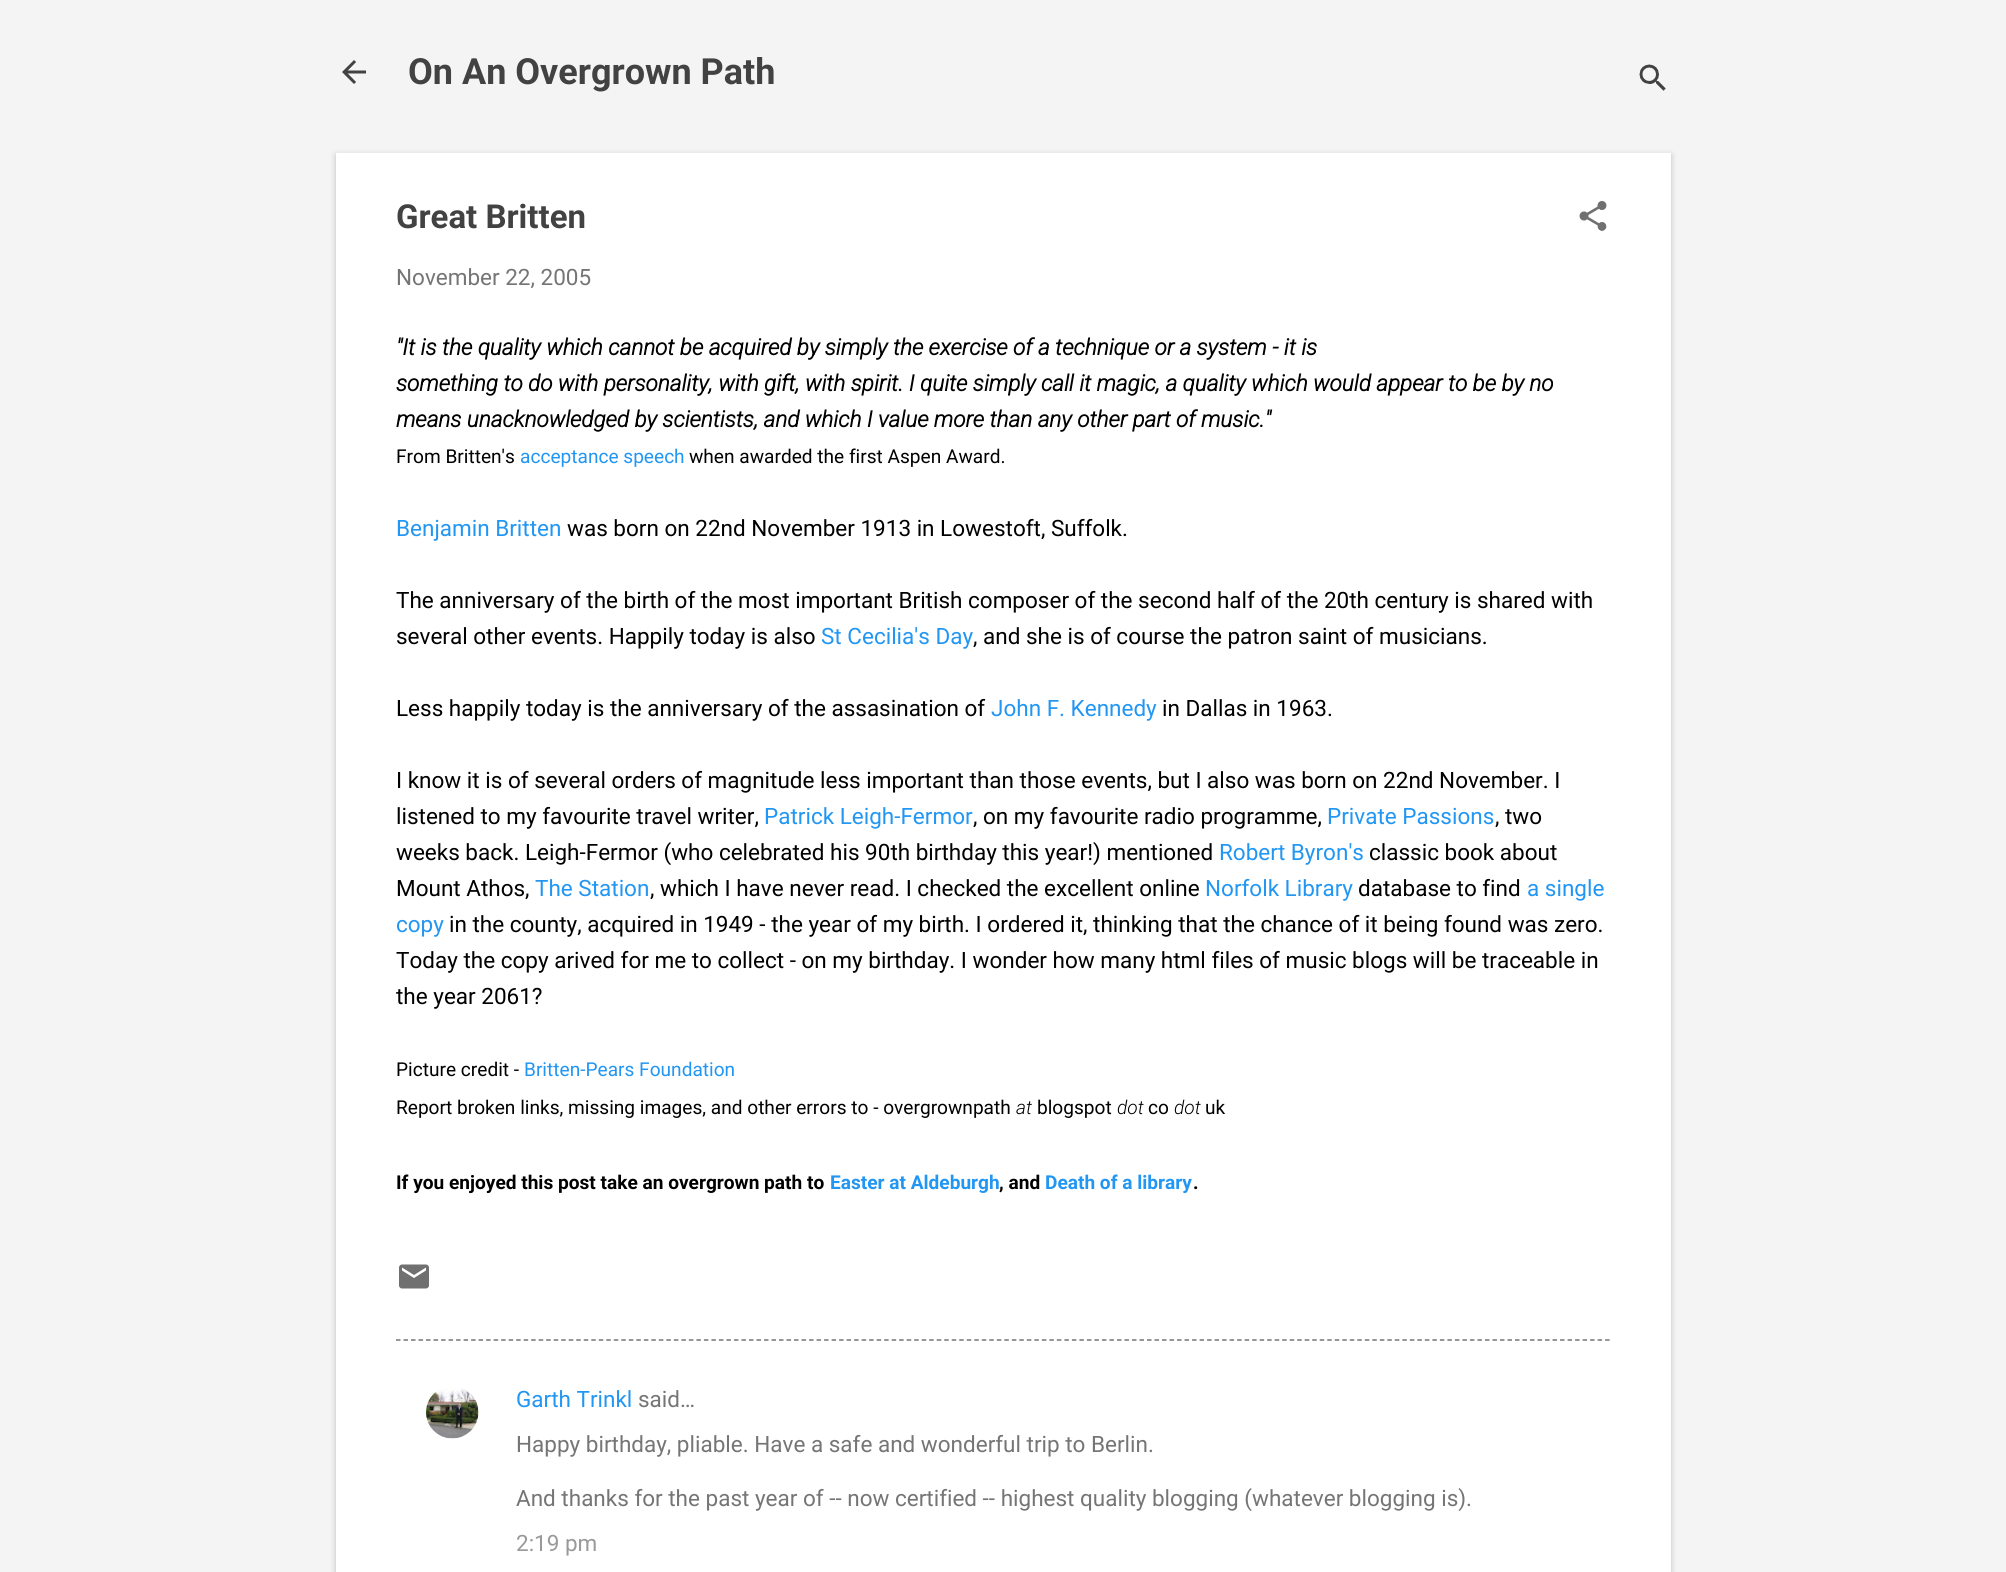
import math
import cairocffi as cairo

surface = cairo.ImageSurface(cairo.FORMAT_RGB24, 2006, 1572)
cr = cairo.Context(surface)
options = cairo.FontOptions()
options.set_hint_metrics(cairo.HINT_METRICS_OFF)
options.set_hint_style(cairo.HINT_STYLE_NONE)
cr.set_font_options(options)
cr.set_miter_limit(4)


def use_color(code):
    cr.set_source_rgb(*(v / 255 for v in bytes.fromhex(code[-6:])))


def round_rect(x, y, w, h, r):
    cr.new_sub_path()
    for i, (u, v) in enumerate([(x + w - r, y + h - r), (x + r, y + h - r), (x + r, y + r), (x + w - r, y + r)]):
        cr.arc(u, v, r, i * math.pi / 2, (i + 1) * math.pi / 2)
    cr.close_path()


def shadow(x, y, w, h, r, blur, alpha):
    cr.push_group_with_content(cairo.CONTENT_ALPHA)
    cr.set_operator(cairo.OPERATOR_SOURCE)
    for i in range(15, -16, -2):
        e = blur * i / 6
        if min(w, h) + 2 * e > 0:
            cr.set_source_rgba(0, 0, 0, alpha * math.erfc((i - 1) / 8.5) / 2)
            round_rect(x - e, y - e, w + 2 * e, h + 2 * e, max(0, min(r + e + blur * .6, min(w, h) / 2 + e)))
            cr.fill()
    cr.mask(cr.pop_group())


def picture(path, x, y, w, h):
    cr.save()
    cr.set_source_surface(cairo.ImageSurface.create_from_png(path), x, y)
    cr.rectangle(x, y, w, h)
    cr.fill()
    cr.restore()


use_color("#f4f4f4")
cr.paint()
picture("img1.png", 342, 60, 24, 24)
cr.select_font_face("Roboto", cairo.FONT_SLANT_NORMAL, cairo.FONT_WEIGHT_BOLD)
cr.set_font_size(36)
use_color("#424242")
cr.move_to(408, 84)
cr.show_text("On An Overgrown Path")
picture("img2.png", 1639, 64, 27, 27)
use_color("#3c4043")
shadow(336, 155, 1335, 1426, 0, 3, 0.3)
use_color("#ffffff")
cr.rectangle(336, 153, 1335, 1419)
cr.fill()
cr.set_font_size(33)
use_color("#424242")
cr.move_to(396, 228)
cr.show_text("Great Britten")
picture("img3.png", 1579, 201, 28, 30)
cr.select_font_face("Roboto")
cr.set_font_size(22.5)
use_color("#757575")
cr.move_to(396, 285)
cr.show_text("November 22, 2005")
cr.select_font_face("Roboto", cairo.FONT_SLANT_ITALIC, cairo.FONT_WEIGHT_BOLD)
use_color("#000000")
cr.move_to(396, 355)
cr.show_text("\"It is the quality which cannot be acquired by simply the exercise of a technique or a system - it is")
cr.move_to(396, 391)
cr.show_text("something to do with personality, with gift, with spirit. I quite simply call it magic, a quality which would appear to be by no")
cr.move_to(396, 427)
cr.show_text("means unacknowledged by scientists, and which I value more than any other part of music.\"")
cr.select_font_face("Roboto")
cr.set_font_size(19.1)
cr.move_to(396, 463)
cr.show_text("From Britten's")
use_color("#2196f3")
cr.move_to(520, 463)
cr.show_text("acceptance speech")
use_color("#000000")
cr.move_to(689, 463)
cr.show_text("when awarded the first Aspen Award.")
cr.set_font_size(22.5)
use_color("#2196f3")
cr.move_to(396, 536)
cr.show_text("Benjamin Britten")
use_color("#000000")
cr.move_to(567, 536)
cr.show_text("was born on 22nd November 1913 in Lowestoft, Suffolk.")
cr.move_to(396, 608)
cr.show_text("The anniversary of the birth of the most important British composer of the second half of the 20th century is shared with")
cr.move_to(396, 644)
cr.show_text("several other events. Happily today is also")
use_color("#2196f3")
cr.move_to(821, 644)
cr.show_text("St Cecilia's Day")
use_color("#000000")
cr.move_to(973, 644)
cr.show_text(", and she is of course the patron saint of musicians.")
cr.move_to(396, 716)
cr.show_text("Less happily today is the anniversary of the assasination of")
use_color("#2196f3")
cr.move_to(991, 716)
cr.show_text("John F. Kennedy")
use_color("#000000")
cr.move_to(1162, 716)
cr.show_text("in Dallas in 1963.")
cr.move_to(396, 788)
cr.show_text("I know it is of several orders of magnitude less important than those events, but I also was born on 22nd November. I")
cr.move_to(396, 824)
cr.show_text("listened to my favourite travel writer,")
use_color("#2196f3")
cr.move_to(764, 824)
cr.show_text("Patrick Leigh-Fermor")
use_color("#000000")
cr.move_to(973, 824)
cr.show_text(", on my favourite radio programme,")
use_color("#2196f3")
cr.move_to(1327, 824)
cr.show_text("Private Passions")
use_color("#000000")
cr.move_to(1495, 824)
cr.show_text(", two")
cr.move_to(396, 860)
cr.show_text("weeks back. Leigh-Fermor (who celebrated his 90th birthday this year!) mentioned")
use_color("#2196f3")
cr.move_to(1219, 860)
cr.show_text("Robert Byron's")
use_color("#000000")
cr.move_to(1369, 860)
cr.show_text("classic book about")
cr.move_to(396, 896)
cr.show_text("Mount Athos,")
use_color("#2196f3")
cr.move_to(535, 896)
cr.show_text("The Station")
use_color("#000000")
cr.move_to(650, 896)
cr.show_text(", which I have never read. I checked the excellent online")
use_color("#2196f3")
cr.move_to(1205, 896)
cr.show_text("Norfolk Library")
use_color("#000000")
cr.move_to(1358, 896)
cr.show_text("database to find")
use_color("#2196f3")
cr.move_to(1527, 896)
cr.show_text("a single")
cr.move_to(396, 932)
cr.show_text("copy")
use_color("#000000")
cr.move_to(449, 932)
cr.show_text("in the county, acquired in 1949 - the year of my birth. I ordered it, thinking that the chance of it being found was zero.")
cr.move_to(396, 968)
cr.show_text("Today the copy arived for me to collect - on my birthday. I wonder how many html files of music blogs will be traceable in")
cr.move_to(396, 1004)
cr.show_text("the year 2061?")
cr.set_font_size(19.1)
cr.move_to(396, 1076)
cr.show_text("Picture credit -")
use_color("#2196f3")
cr.move_to(524, 1076)
cr.show_text("Britten-Pears Foundation")
use_color("#000000")
cr.move_to(396, 1114)
cr.show_text("Report broken links, missing images, and other errors to - overgrownpath")
cr.select_font_face("Roboto Light", cairo.FONT_SLANT_ITALIC)
cr.move_to(1016, 1114)
cr.show_text("at")
cr.select_font_face("Roboto")
cr.move_to(1037, 1114)
cr.show_text("blogspot")
cr.select_font_face("Roboto Light", cairo.FONT_SLANT_ITALIC)
cr.move_to(1117, 1114)
cr.show_text("dot")
cr.select_font_face("Roboto")
cr.move_to(1148, 1114)
cr.show_text("co")
cr.select_font_face("Roboto Light", cairo.FONT_SLANT_ITALIC)
cr.move_to(1174, 1114)
cr.show_text("dot")
cr.select_font_face("Roboto")
cr.move_to(1205, 1114)
cr.show_text("uk")
cr.select_font_face("Roboto", cairo.FONT_SLANT_NORMAL, cairo.FONT_WEIGHT_BOLD)
cr.move_to(396, 1189)
cr.show_text("If you enjoyed this post take an overgrown path to")
use_color("#2196f3")
cr.move_to(830, 1189)
cr.show_text("Easter at Aldeburgh")
use_color("#000000")
cr.move_to(999, 1189)
cr.show_text(", and")
use_color("#2196f3")
cr.move_to(1045, 1189)
cr.show_text("Death of a library")
use_color("#000000")
cr.move_to(1193, 1189)
cr.show_text(".")
picture("img4.png", 399, 1264, 30, 25)
cr.new_path()
cr.move_to(396, 1340)
cr.line_to(1611, 1340)
use_color("#757575")
cr.set_line_width(1.5)
cr.set_dash([4.5, 3.01])
cr.stroke()
picture("img5.png", 426, 1388, 53, 51)
cr.select_font_face("Roboto")
cr.set_font_size(22.5)
use_color("#2196f3")
cr.move_to(516, 1407)
cr.show_text("Garth Trinkl")
use_color("#757575")
cr.move_to(638, 1407)
cr.show_text("said…")
cr.move_to(516, 1452)
cr.show_text("Happy birthday, pliable. Have a safe and wonderful trip to Berlin.")
cr.move_to(516, 1506)
cr.show_text("And thanks for the past year of -- now certified -- highest quality blogging (whatever blogging is).")
use_color("#999999")
cr.move_to(516, 1551)
cr.show_text("2:19 pm")
surface.write_to_png("result.png")
